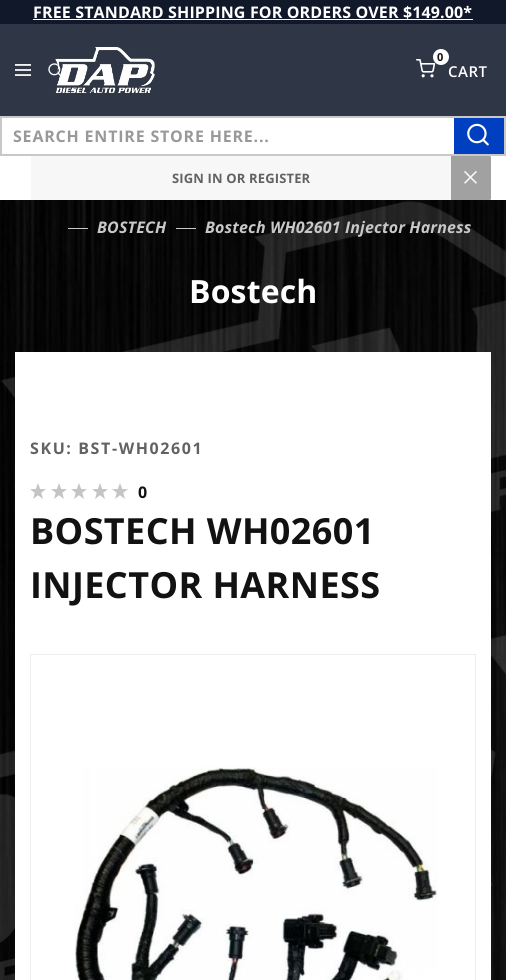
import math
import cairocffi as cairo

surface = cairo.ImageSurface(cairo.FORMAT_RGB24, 506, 980)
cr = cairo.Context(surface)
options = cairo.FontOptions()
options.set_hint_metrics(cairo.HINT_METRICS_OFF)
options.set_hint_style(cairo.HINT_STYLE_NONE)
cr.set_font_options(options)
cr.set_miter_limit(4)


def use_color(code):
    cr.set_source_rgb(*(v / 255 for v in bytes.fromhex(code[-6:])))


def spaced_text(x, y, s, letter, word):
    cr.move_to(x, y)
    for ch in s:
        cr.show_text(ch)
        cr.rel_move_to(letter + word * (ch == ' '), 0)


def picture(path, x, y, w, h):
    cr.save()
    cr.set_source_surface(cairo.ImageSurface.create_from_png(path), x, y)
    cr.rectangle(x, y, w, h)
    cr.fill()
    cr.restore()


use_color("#11182a")
cr.paint()
cr.select_font_face("Open Sans", cairo.FONT_SLANT_NORMAL, cairo.FONT_WEIGHT_BOLD)
cr.set_font_size(16)
use_color("#ffffff")
spaced_text(33, 18, "FREE STANDARD SHIPPING FOR ORDERS OVER $149.00*", 0.15, 0)
cr.rectangle(33, 19, 440, 1)
cr.fill()
use_color("#2f3646")
cr.rectangle(0, 24, 506, 92)
cr.fill()
picture("img1.png", 15, 64, 16, 12)
picture("img2.png", 48, 63, 13, 13)
picture("img3.png", 55, 47, 100, 46)
picture("img4.png", 416, 59, 20, 19)
use_color("#ffffff")
cr.arc(441, 57, 8, 0, 2 * math.pi)
cr.fill()
cr.set_font_size(11)
use_color("#121212")
spaced_text(437, 61, "0", 0.5, 0)
cr.select_font_face("Open Sans SemiBold")
cr.set_font_size(15)
use_color("#ffffff")
spaced_text(448, 77, "CART", 0.5, 0)
cr.rectangle(2, 118, 452, 36)
cr.fill()
cr.rectangle(1, 117, 504, 38)
use_color("#c8c8c8")
cr.stroke()
cr.select_font_face("Open Sans", cairo.FONT_SLANT_NORMAL, cairo.FONT_WEIGHT_BOLD)
cr.set_font_size(16)
use_color("#999999")
spaced_text(13, 142, "SEARCH ENTIRE STORE HERE...", 0.8, 0)
use_color("#003fc0")
cr.rectangle(454, 118, 50, 36)
cr.fill()
picture("img5.png", 467, 123, 22, 23)
use_color("#ffffff")
cr.rectangle(0, 156, 506, 44)
cr.fill()
use_color("#f7f7f7")
cr.new_path()
cr.move_to(32.5, 156)
cr.line_to(451, 156)
cr.line_to(451, 200)
cr.line_to(32.5, 200)
cr.curve_to(31.5, 200, 31, 199.5, 31, 198.5)
cr.line_to(31, 157.5)
cr.curve_to(31, 156.5, 31.5, 156, 32.5, 156)
cr.close_path()
cr.fill()
cr.set_font_size(13)
use_color("#626262")
spaced_text(172, 183, "SIGN IN OR REGISTER", 0.15, 0)
use_color("#a1a1a1")
cr.new_path()
cr.move_to(451, 156)
cr.line_to(489.5, 156)
cr.curve_to(490.5, 156, 491, 156.5, 491, 157.5)
cr.line_to(491, 198.5)
cr.curve_to(491, 199.5, 490.5, 200, 489.5, 200)
cr.line_to(451, 200)
cr.close_path()
cr.fill()
cr.select_font_face("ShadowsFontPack")
use_color("#f7f7f7")
spaced_text(464, 183, ">", 1, 0)
picture("img6.png", 0, 200, 506, 780)
use_color("#c8c8c8")
cr.rectangle(68, 228, 20, 1)
cr.fill()
cr.select_font_face("Open Sans", cairo.FONT_SLANT_ITALIC, cairo.FONT_WEIGHT_BOLD)
cr.set_font_size(16)
spaced_text(97, 233, "BOSTECH", 0.15, 0)
cr.rectangle(176, 228, 20, 1)
cr.fill()
spaced_text(205, 233, "Bostech WH02601 Injector Harness", 0.15, 0)
cr.select_font_face("Open Sans", cairo.FONT_SLANT_NORMAL, cairo.FONT_WEIGHT_BOLD)
cr.set_font_size(32)
use_color("#ffffff")
spaced_text(189, 303, "Bostech", 0.15, 0)
cr.rectangle(15, 352, 476, 628)
cr.fill()
cr.set_font_size(16)
use_color("#626262")
spaced_text(30, 454, "SKU: BST-WH02601", 1.6, 0)
picture("img7.png", 30, 483, 16, 16)
picture("img7.png", 51, 483, 16, 16)
picture("img7.png", 71, 483, 16, 16)
picture("img7.png", 92, 483, 16, 16)
picture("img7.png", 112, 483, 16, 16)
use_color("#121212")
spaced_text(138, 498, "0", 0.15, 0)
cr.set_font_size(36)
spaced_text(30, 544, "BOSTECH WH02601", 0.4, 0)
spaced_text(30, 598, "INJECTOR HARNESS", 0.4, 0)
cr.rectangle(30.5, 654.5, 445, 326)
use_color("#ededed")
cr.set_line_width(1)
cr.stroke()
picture("img8.png", 75, 767, 363, 213)
surface.write_to_png("result.png")
